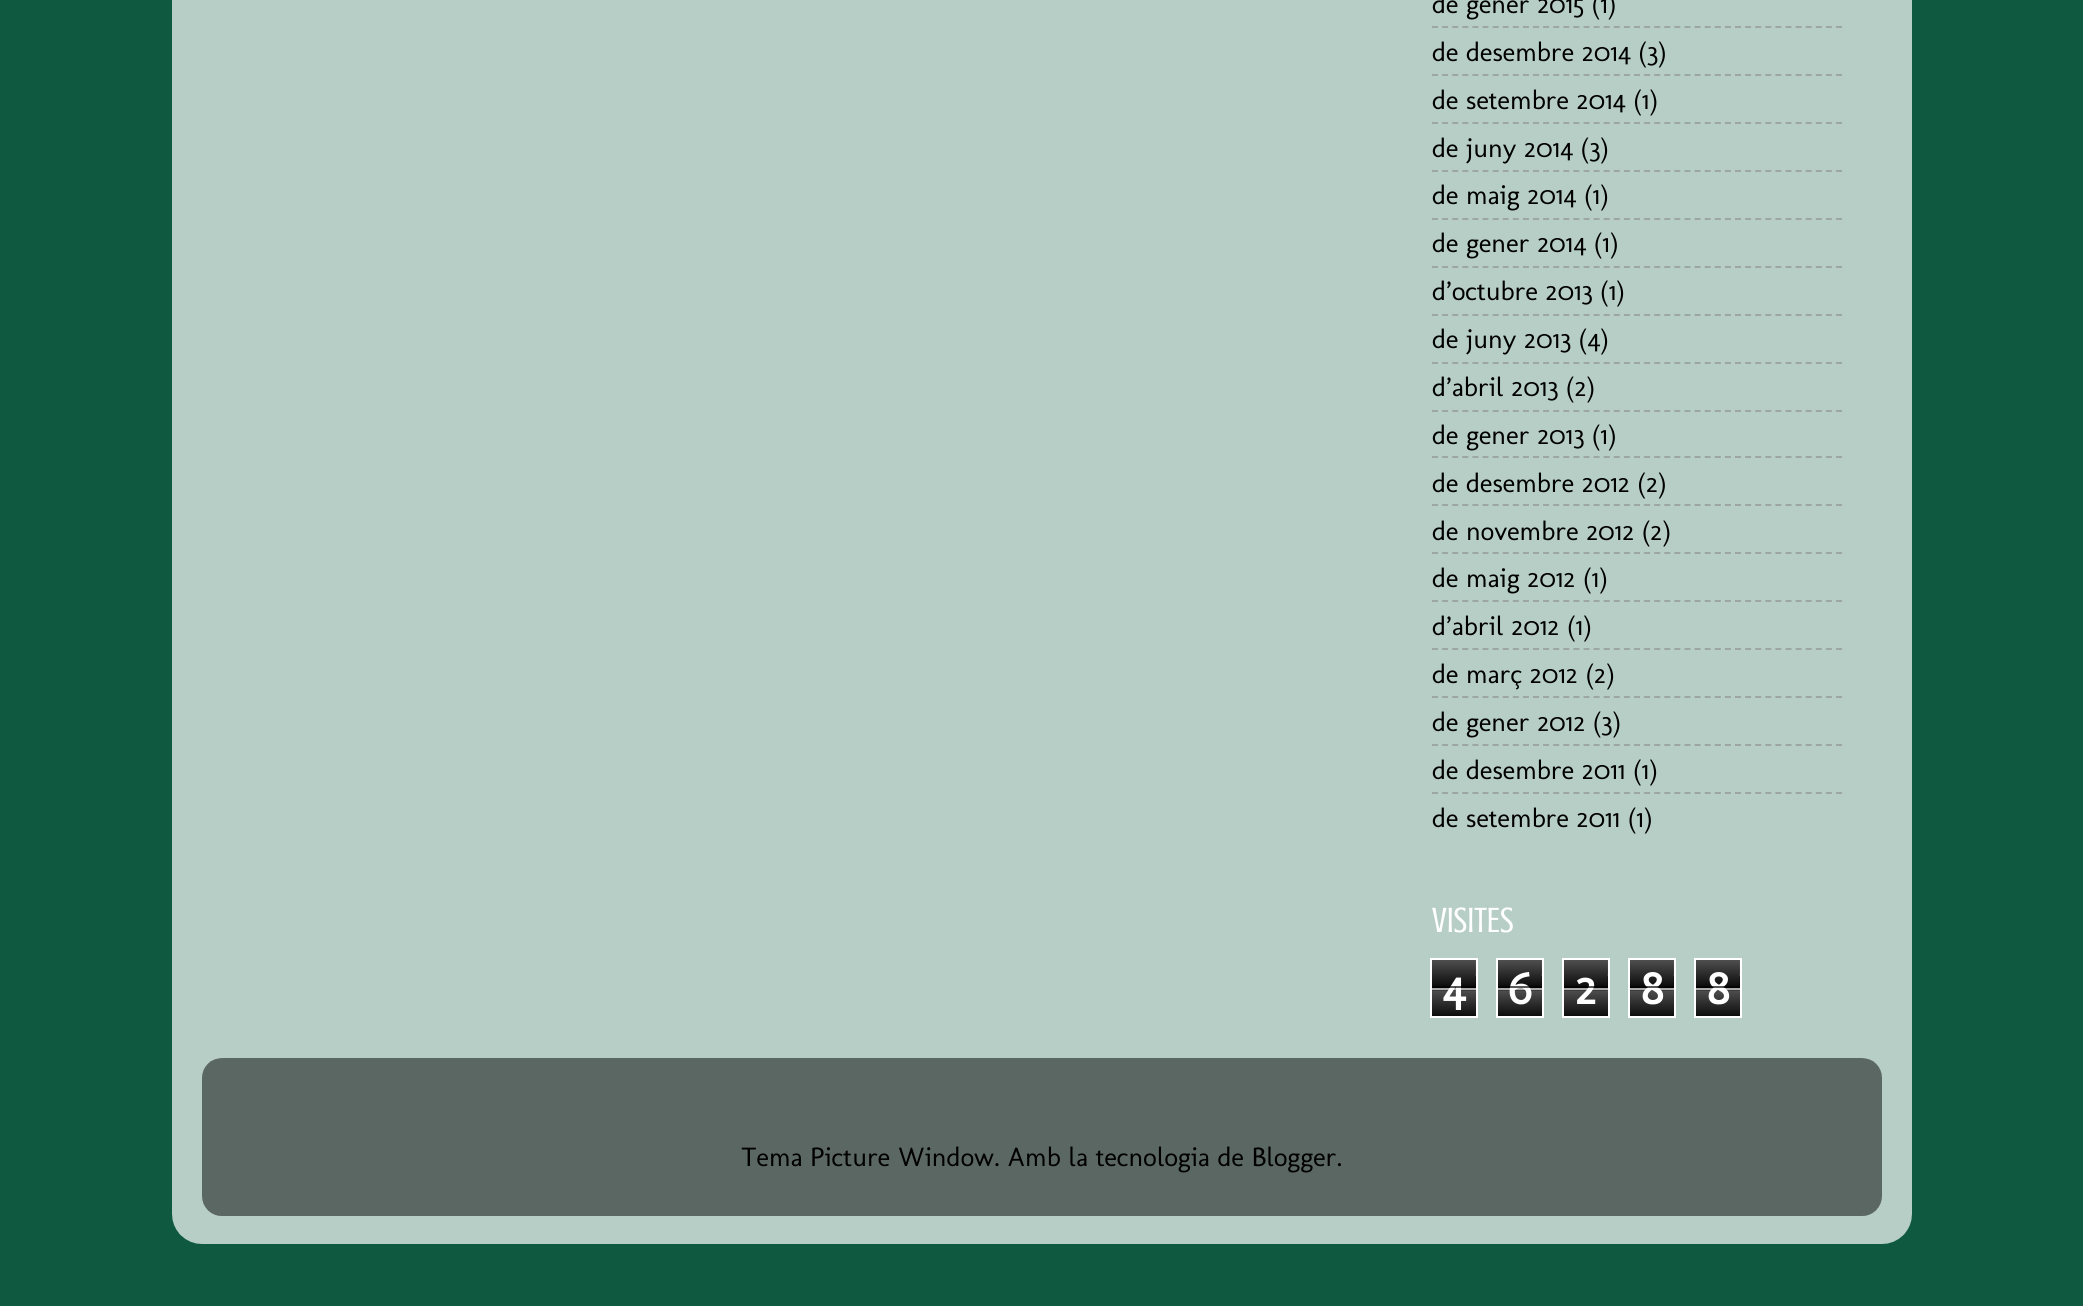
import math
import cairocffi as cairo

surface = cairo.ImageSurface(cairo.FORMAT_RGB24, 2083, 1306)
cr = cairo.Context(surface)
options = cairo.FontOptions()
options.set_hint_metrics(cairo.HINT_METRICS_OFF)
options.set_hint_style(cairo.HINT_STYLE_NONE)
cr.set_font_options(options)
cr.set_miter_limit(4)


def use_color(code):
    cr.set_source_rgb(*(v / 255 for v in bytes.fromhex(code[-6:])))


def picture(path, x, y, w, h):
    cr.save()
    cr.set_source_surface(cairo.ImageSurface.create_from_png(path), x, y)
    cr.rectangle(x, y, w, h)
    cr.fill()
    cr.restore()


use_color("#0e593f")
cr.paint()
picture("img1.png", 172, 0, 1740, 1244)
cr.select_font_face("Molengo")
cr.set_font_size(27)
use_color("#000000")
cr.move_to(1432, 13)
cr.show_text("de gener 2015 (1)")
cr.new_path()
cr.move_to(1432, 27)
cr.line_to(1842, 27)
use_color("#9ca7a3")
cr.set_dash([6, 4.1])
cr.stroke()
use_color("#000000")
cr.move_to(1432, 61)
cr.show_text("de desembre 2014 (3)")
cr.new_path()
cr.move_to(1432, 75)
cr.line_to(1842, 75)
use_color("#9ca7a3")
cr.stroke()
use_color("#000000")
cr.move_to(1432, 109)
cr.show_text("de setembre 2014 (1)")
cr.new_path()
cr.move_to(1432, 123)
cr.line_to(1842, 123)
use_color("#9ca7a3")
cr.stroke()
use_color("#000000")
cr.move_to(1432, 157)
cr.show_text("de juny 2014 (3)")
cr.new_path()
cr.move_to(1432, 171)
cr.line_to(1842, 171)
use_color("#9ca7a3")
cr.stroke()
use_color("#000000")
cr.move_to(1432, 204)
cr.show_text("de maig 2014 (1)")
cr.new_path()
cr.move_to(1432, 219)
cr.line_to(1842, 219)
use_color("#9ca7a3")
cr.stroke()
use_color("#000000")
cr.move_to(1432, 252)
cr.show_text("de gener 2014 (1)")
cr.new_path()
cr.move_to(1432, 267)
cr.line_to(1842, 267)
use_color("#9ca7a3")
cr.stroke()
use_color("#000000")
cr.move_to(1432, 300)
cr.show_text("d’octubre 2013 (1)")
cr.new_path()
cr.move_to(1432, 315)
cr.line_to(1842, 315)
use_color("#9ca7a3")
cr.stroke()
use_color("#000000")
cr.move_to(1432, 348)
cr.show_text("de juny 2013 (4)")
cr.new_path()
cr.move_to(1432, 363)
cr.line_to(1842, 363)
use_color("#9ca7a3")
cr.stroke()
use_color("#000000")
cr.move_to(1432, 396)
cr.show_text("d’abril 2013 (2)")
cr.new_path()
cr.move_to(1432, 411)
cr.line_to(1842, 411)
use_color("#9ca7a3")
cr.stroke()
use_color("#000000")
cr.move_to(1432, 444)
cr.show_text("de gener 2013 (1)")
cr.new_path()
cr.move_to(1432, 457)
cr.line_to(1842, 457)
use_color("#9ca7a3")
cr.stroke()
use_color("#000000")
cr.move_to(1432, 492)
cr.show_text("de desembre 2012 (2)")
cr.new_path()
cr.move_to(1432, 505)
cr.line_to(1842, 505)
use_color("#9ca7a3")
cr.stroke()
use_color("#000000")
cr.move_to(1432, 540)
cr.show_text("de novembre 2012 (2)")
cr.new_path()
cr.move_to(1432, 553)
cr.line_to(1842, 553)
use_color("#9ca7a3")
cr.stroke()
use_color("#000000")
cr.move_to(1432, 587)
cr.show_text("de maig 2012 (1)")
cr.new_path()
cr.move_to(1432, 601)
cr.line_to(1842, 601)
use_color("#9ca7a3")
cr.stroke()
use_color("#000000")
cr.move_to(1432, 635)
cr.show_text("d’abril 2012 (1)")
cr.new_path()
cr.move_to(1432, 649)
cr.line_to(1842, 649)
use_color("#9ca7a3")
cr.stroke()
use_color("#000000")
cr.move_to(1432, 683)
cr.show_text("de març 2012 (2)")
cr.new_path()
cr.move_to(1432, 697)
cr.line_to(1842, 697)
use_color("#9ca7a3")
cr.stroke()
use_color("#000000")
cr.move_to(1432, 731)
cr.show_text("de gener 2012 (3)")
cr.new_path()
cr.move_to(1432, 745)
cr.line_to(1842, 745)
use_color("#9ca7a3")
cr.stroke()
use_color("#000000")
cr.move_to(1432, 779)
cr.show_text("de desembre 2011 (1)")
cr.new_path()
cr.move_to(1432, 793)
cr.line_to(1842, 793)
use_color("#9ca7a3")
cr.stroke()
use_color("#000000")
cr.move_to(1432, 827)
cr.show_text("de setembre 2011 (1)")
cr.select_font_face("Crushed")
cr.set_font_size(36)
use_color("#ffffff")
cr.move_to(1432, 932)
cr.show_text("VISITES")
picture("img2.png", 1432, 960, 44, 56)
cr.rectangle(1431, 959, 46, 58)
cr.set_dash([])
cr.stroke()
cr.select_font_face("Molengo", cairo.FONT_SLANT_NORMAL, cairo.FONT_WEIGHT_BOLD)
cr.set_font_size(48)
cr.move_to(1442, 1004)
cr.show_text("4")
cr.set_source_rgba(0, 0, 0, 0.65)
cr.rectangle(1432, 986, 44, 2)
cr.fill()
cr.set_source_rgba(1, 1, 1, 0.65)
cr.rectangle(1432, 988, 44, 2)
cr.fill()
picture("img2.png", 1498, 960, 44, 56)
cr.rectangle(1497, 959, 46, 58)
use_color("#ffffff")
cr.stroke()
cr.move_to(1508, 1004)
cr.show_text("6")
cr.set_source_rgba(0, 0, 0, 0.65)
cr.rectangle(1498, 986, 44, 2)
cr.fill()
cr.set_source_rgba(1, 1, 1, 0.65)
cr.rectangle(1498, 988, 44, 2)
cr.fill()
picture("img2.png", 1564, 960, 44, 56)
cr.rectangle(1563, 959, 46, 58)
use_color("#ffffff")
cr.stroke()
cr.move_to(1575, 1004)
cr.show_text("2")
cr.set_source_rgba(0, 0, 0, 0.65)
cr.rectangle(1564, 986, 44, 2)
cr.fill()
cr.set_source_rgba(1, 1, 1, 0.65)
cr.rectangle(1564, 988, 44, 2)
cr.fill()
picture("img2.png", 1630, 960, 44, 56)
cr.rectangle(1629, 959, 46, 58)
use_color("#ffffff")
cr.stroke()
cr.move_to(1641, 1004)
cr.show_text("8")
cr.set_source_rgba(0, 0, 0, 0.65)
cr.rectangle(1630, 986, 44, 2)
cr.fill()
cr.set_source_rgba(1, 1, 1, 0.65)
cr.rectangle(1630, 988, 44, 2)
cr.fill()
picture("img2.png", 1696, 960, 44, 56)
cr.rectangle(1695, 959, 46, 58)
use_color("#ffffff")
cr.stroke()
cr.move_to(1707, 1004)
cr.show_text("8")
cr.set_source_rgba(0, 0, 0, 0.65)
cr.rectangle(1696, 986, 44, 2)
cr.fill()
cr.set_source_rgba(1, 1, 1, 0.65)
cr.rectangle(1696, 988, 44, 2)
cr.fill()
picture("img3.png", 202, 1058, 1680, 158)
cr.select_font_face("Molengo")
cr.set_font_size(27)
use_color("#000000")
cr.move_to(741, 1166)
cr.show_text("Tema Picture Window. Amb la tecnologia de Blogger.")
surface.write_to_png("result.png")
